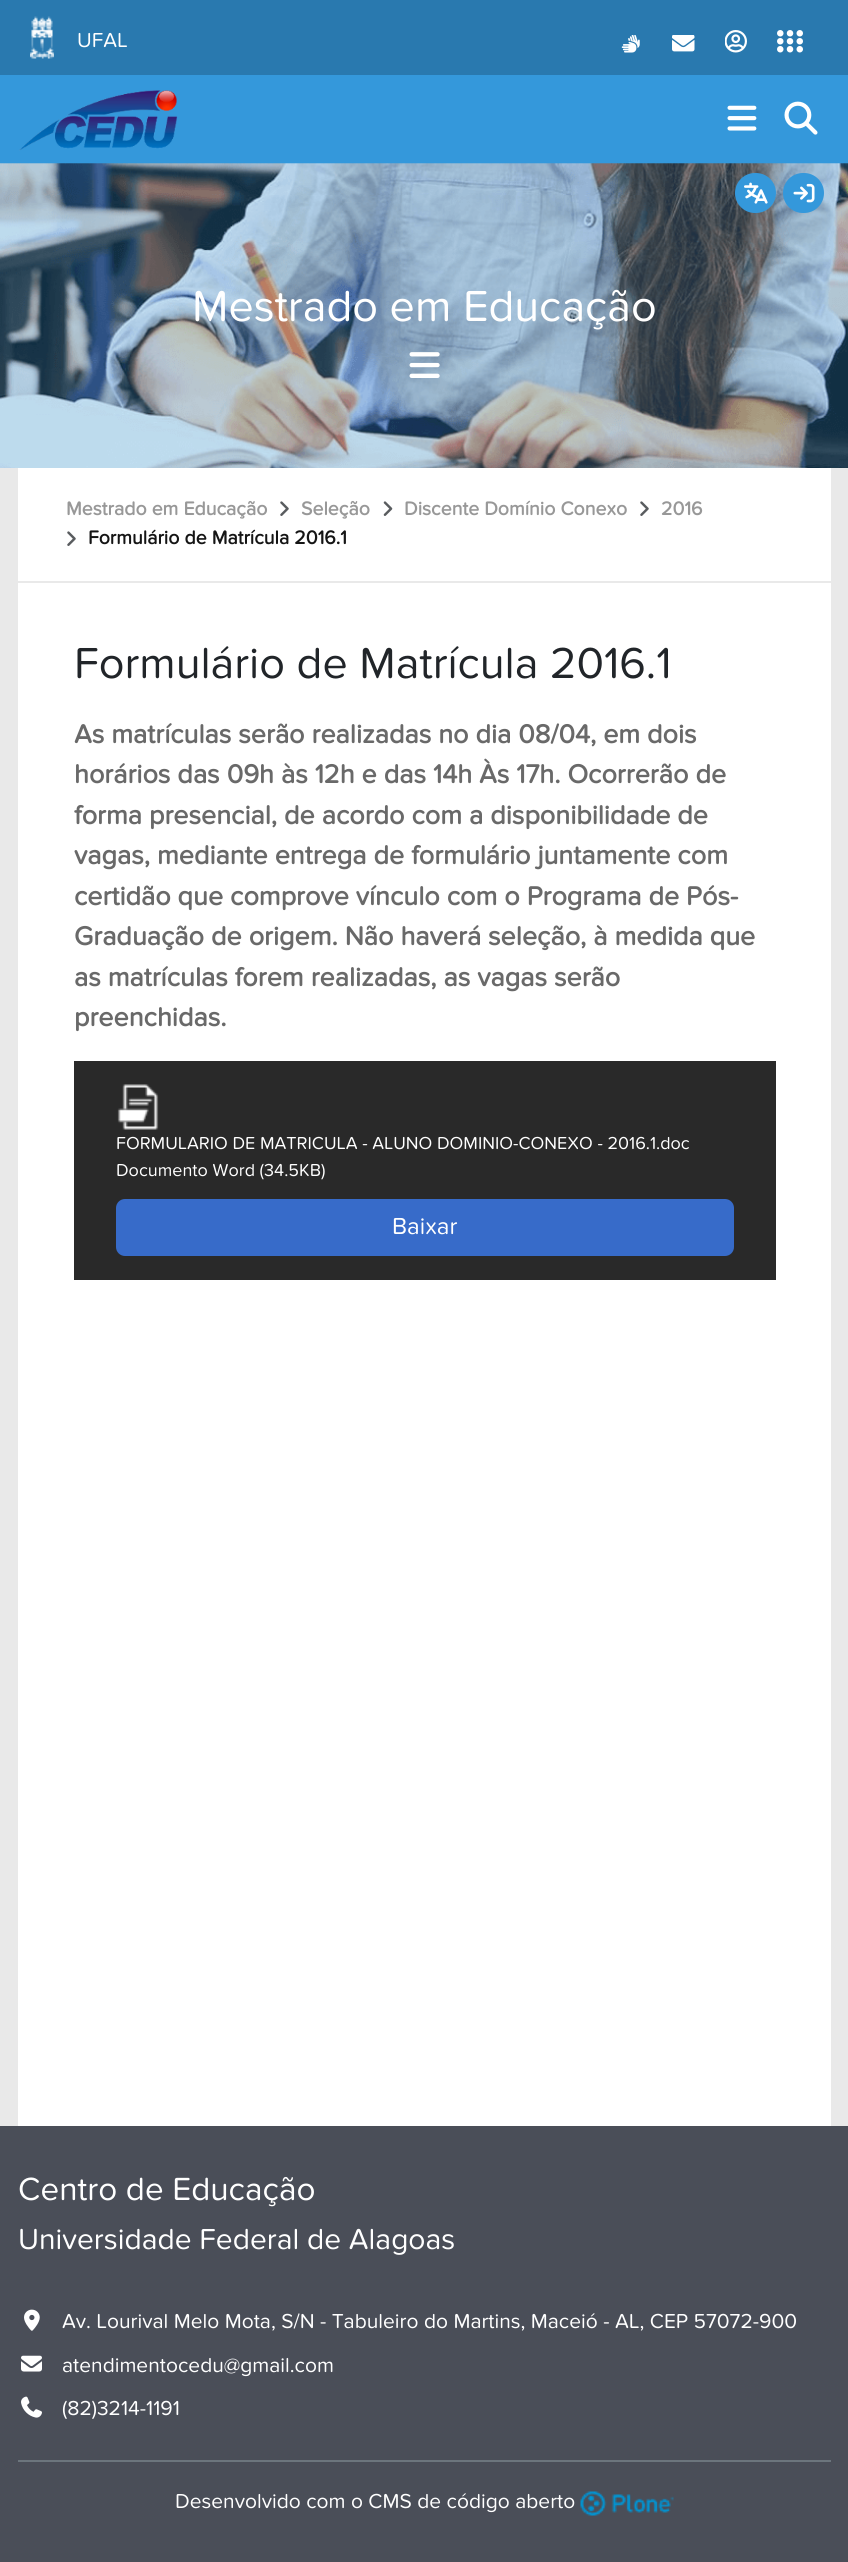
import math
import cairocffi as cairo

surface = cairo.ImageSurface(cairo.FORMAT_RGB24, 848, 2562)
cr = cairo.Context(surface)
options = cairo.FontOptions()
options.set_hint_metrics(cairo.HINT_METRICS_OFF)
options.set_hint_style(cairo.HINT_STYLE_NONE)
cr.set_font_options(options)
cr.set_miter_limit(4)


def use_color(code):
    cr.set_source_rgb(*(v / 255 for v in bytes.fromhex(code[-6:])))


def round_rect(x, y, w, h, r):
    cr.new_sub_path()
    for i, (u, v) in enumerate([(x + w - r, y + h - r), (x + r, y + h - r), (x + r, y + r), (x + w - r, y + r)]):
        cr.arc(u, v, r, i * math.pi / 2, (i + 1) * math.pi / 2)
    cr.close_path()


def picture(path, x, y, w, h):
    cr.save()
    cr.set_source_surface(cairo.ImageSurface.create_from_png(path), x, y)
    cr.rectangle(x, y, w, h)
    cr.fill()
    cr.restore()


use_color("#e9e9e9")
cr.paint()
use_color("#2979af")
cr.rectangle(0, 0, 848, 75)
cr.fill()
picture("img1.png", 30, 16, 24, 43)
cr.select_font_face("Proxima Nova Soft")
cr.set_font_size(21)
use_color("#ffffff")
cr.move_to(77, 47)
cr.show_text("UFAL")
picture("img2.png", 621, 35, 19, 18)
picture("img3.png", 672, 35, 23, 17)
picture("img4.png", 725, 30, 22, 23)
picture("img5.png", 777, 30, 26, 23)
use_color("#3498db")
cr.rectangle(0, 75, 848, 89)
cr.fill()
picture("img6.png", 19, 90, 159, 61)
picture("img7.png", 727, 105, 30, 26)
picture("img8.png", 784, 101, 34, 34)
picture("img9.png", 0, 163, 848, 305)
round_rect(735, 173, 41, 40, 20)
cr.fill()
picture("img10.png", 744, 182, 24, 22)
round_rect(783, 173, 41, 40, 20)
cr.fill()
picture("img11.png", 793, 183, 22, 20)
cr.set_font_size(45)
use_color("#ffffff")
cr.move_to(192, 321)
cr.show_text("Mestrado em Educação")
picture("img12.png", 409, 352, 31, 26)
cr.rectangle(18, 468, 813, 1658)
cr.fill()
use_color("#e9e9e9")
cr.rectangle(18, 581, 813, 2)
cr.fill()
cr.select_font_face("Proxima Nova Soft", cairo.FONT_SLANT_NORMAL, cairo.FONT_WEIGHT_BOLD)
cr.set_font_size(19.5)
use_color("#989898")
cr.move_to(66, 515)
cr.show_text("Mestrado em Educação")
picture("img13.png", 280, 501, 9, 15)
cr.move_to(301, 515)
cr.show_text("Seleção")
picture("img14.png", 383, 501, 10, 15)
cr.move_to(404, 515)
cr.show_text("Discente Domínio Conexo")
picture("img13.png", 640, 501, 9, 15)
cr.move_to(661, 515)
cr.show_text("2016")
picture("img13.png", 67, 531, 9, 15)
use_color("#151515")
cr.move_to(88, 544)
cr.show_text("Formulário de Matrícula 2016.1")
cr.select_font_face("Proxima Nova Soft")
cr.set_font_size(45)
use_color("#212529")
cr.move_to(74, 678)
cr.show_text("Formulário de Matrícula 2016.1")
cr.select_font_face("Proxima Nova Soft", cairo.FONT_SLANT_NORMAL, cairo.FONT_WEIGHT_BOLD)
cr.set_font_size(27)
use_color("#696969")
cr.move_to(74, 743)
cr.show_text("As matrículas serão realizadas no dia 08/04, em dois")
cr.move_to(74, 783)
cr.show_text("horários das 09h às 12h e das 14h Às 17h. Ocorrerão de")
cr.move_to(74, 824)
cr.show_text("forma presencial, de acordo com a disponibilidade de")
cr.move_to(74, 864)
cr.show_text("vagas, mediante entrega de formulário juntamente com")
cr.move_to(74, 905)
cr.show_text("certidão que comprove vínculo com o Programa de Pós-")
cr.move_to(74, 945)
cr.show_text("Graduação de origem. Não haverá seleção, à medida que")
cr.move_to(74, 986)
cr.show_text("as matrículas forem realizadas, as vagas serão")
cr.move_to(74, 1026)
cr.show_text("preenchidas.")
use_color("#292929")
cr.rectangle(74, 1061, 702, 219)
cr.fill()
picture("img15.png", 117, 1084, 42, 46)
cr.select_font_face("Proxima Nova Soft")
cr.set_font_size(18)
use_color("#ffffff")
cr.move_to(116, 1149)
cr.show_text("FORMULARIO DE MATRICULA - ALUNO DOMINIO-CONEXO - 2016.1.doc")
cr.move_to(116, 1176)
cr.show_text("Documento Word (34.5KB)")
use_color("#376bc9")
round_rect(116, 1199, 618, 57, 9)
cr.fill()
cr.set_font_size(24)
use_color("#ffffff")
cr.move_to(392, 1234)
cr.show_text("Baixar")
use_color("#4a4e58")
cr.rectangle(0, 2126, 848, 436)
cr.fill()
cr.set_font_size(33.25)
use_color("#ffffff")
cr.move_to(18, 2200)
cr.show_text("Centro de Educação")
cr.set_font_size(30)
cr.move_to(18, 2249)
cr.show_text("Universidade Federal de Alagoas")
picture("img16.png", 24, 2309, 16, 22)
cr.set_font_size(21)
cr.move_to(62, 2328)
cr.show_text("Av. Lourival Melo Mota, S/N - Tabuleiro do Martins, Maceió - AL, CEP 57072-900")
picture("img17.png", 21, 2355, 21, 17)
cr.move_to(62, 2372)
cr.show_text("atendimentocedu@gmail.com")
picture("img18.png", 21, 2396, 21, 22)
cr.move_to(62, 2415)
cr.show_text("(82)3214-1191")
use_color("#6c757d")
cr.rectangle(18, 2460, 813, 2)
cr.fill()
use_color("#ffffff")
cr.move_to(175, 2508)
cr.show_text("Desenvolvido com o CMS de código aberto")
picture("img19.png", 580, 2491, 94, 25)
surface.write_to_png("result.png")
